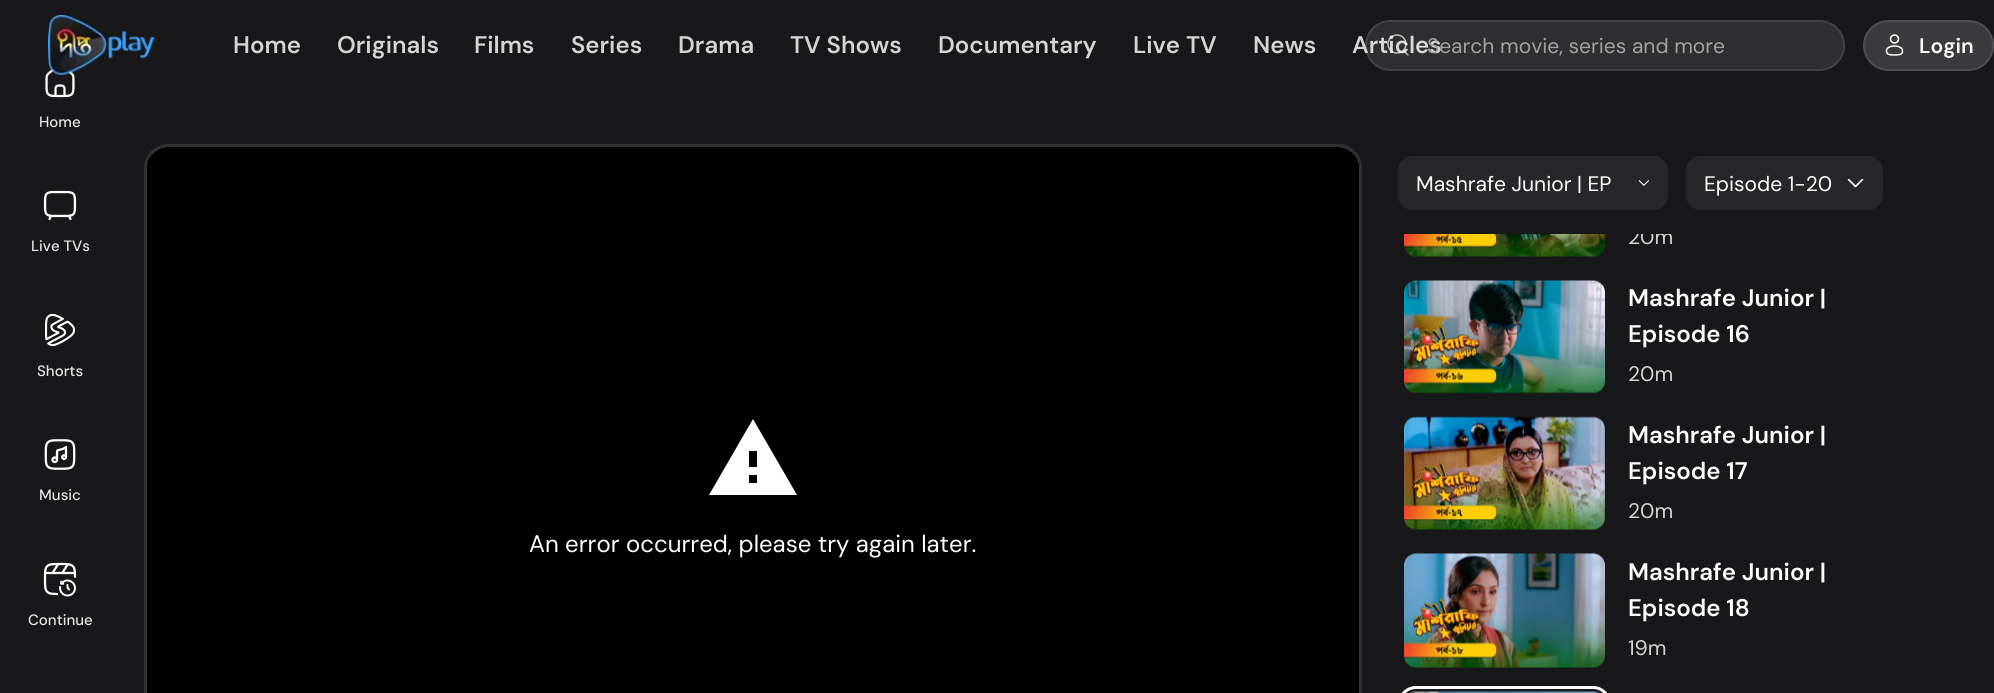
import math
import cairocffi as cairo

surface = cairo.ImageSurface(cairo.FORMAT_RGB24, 1994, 693)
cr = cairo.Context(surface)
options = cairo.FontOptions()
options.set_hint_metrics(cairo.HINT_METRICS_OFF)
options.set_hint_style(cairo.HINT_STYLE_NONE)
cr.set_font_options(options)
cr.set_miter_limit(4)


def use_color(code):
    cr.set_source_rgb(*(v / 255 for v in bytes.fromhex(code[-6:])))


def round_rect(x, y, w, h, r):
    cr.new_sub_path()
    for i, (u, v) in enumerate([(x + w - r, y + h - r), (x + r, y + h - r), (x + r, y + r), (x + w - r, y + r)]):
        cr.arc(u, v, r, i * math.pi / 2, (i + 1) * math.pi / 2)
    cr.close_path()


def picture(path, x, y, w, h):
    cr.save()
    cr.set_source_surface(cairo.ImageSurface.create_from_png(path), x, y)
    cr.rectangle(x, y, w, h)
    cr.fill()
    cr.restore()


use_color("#18181b")
cr.paint()
picture("img1.png", 45, 67, 30, 31)
cr.select_font_face("DM Sans Medium")
cr.set_font_size(15)
use_color("#e5e5e5")
cr.move_to(39, 127)
cr.show_text("Home")
picture("img2.png", 43, 190, 34, 31)
cr.move_to(31, 251)
cr.show_text("Live TVs")
picture("img3.png", 45, 313, 31, 34)
cr.move_to(37, 376)
cr.show_text("Shorts")
picture("img4.png", 44, 439, 32, 31)
cr.move_to(39, 500)
cr.show_text("Music")
picture("img5.png", 43, 562, 34, 35)
cr.move_to(28, 625)
cr.show_text("Continue")
picture("img6.png", 48, 15, 107, 60)
cr.select_font_face("DM Sans SemiBold")
cr.set_font_size(24)
use_color("#d4d4d4")
cr.move_to(233, 53)
cr.show_text("Home")
cr.move_to(337, 53)
cr.show_text("Originals")
cr.move_to(474, 53)
cr.show_text("Films")
cr.move_to(571, 53)
cr.show_text("Series")
cr.move_to(678, 53)
cr.show_text("Drama")
cr.move_to(790, 53)
cr.show_text("TV Shows")
cr.move_to(938, 53)
cr.show_text("Documentary")
cr.move_to(1133, 53)
cr.show_text("Live TV")
cr.move_to(1253, 53)
cr.show_text("News")
cr.move_to(1352, 53)
cr.show_text("Articles")
cr.set_source_rgba(1, 1, 1, 0.1)
round_rect(1365, 20, 480, 51, 25.5)
cr.fill()
round_rect(1366, 21, 478, 49, 24.5)
cr.stroke()
picture("img7.png", 1387, 34, 22, 22)
cr.select_font_face("DM Sans")
cr.set_font_size(21)
use_color("#a3a3a3")
cr.move_to(1427, 53)
cr.show_text("Search movie, series and more")
use_color("#3b3b3d")
round_rect(1863, 20, 131, 51, 25.5)
cr.fill()
round_rect(1864, 21, 129, 49, 24.5)
cr.set_source_rgba(1, 1, 1, 0.1)
cr.stroke()
picture("img8.png", 1885, 34, 19, 22)
cr.select_font_face("DM Sans SemiBold")
use_color("#ffffff")
cr.move_to(1919, 53)
cr.show_text("Login")
use_color("#0c0c0e")
round_rect(144, 144, 1218, 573, 24)
cr.fill()
round_rect(145.5, 145.5, 1215, 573, 22.5)
cr.set_source_rgba(1, 1, 1, 0.15)
cr.set_line_width(3)
cr.stroke()
picture("img9.png", 150, 147, 1206, 11)
picture("img10.png", 150, 147, 1208, 15)
use_color("#000000")
round_rect(147, 147, 1212, 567, 21)
cr.fill()
use_color("#ffffff")
cr.new_path()
cr.move_to(709, 495)
cr.line_to(797, 495)
cr.line_to(753, 419)
cr.close_path()
cr.move_to(757, 483)
cr.line_to(749, 483)
cr.line_to(749, 475)
cr.line_to(757, 475)
cr.close_path()
cr.move_to(757, 467)
cr.line_to(749, 467)
cr.line_to(749, 451)
cr.line_to(757, 451)
cr.close_path()
cr.fill()
cr.select_font_face("DM Sans")
cr.set_font_size(24)
cr.move_to(529, 552)
cr.show_text("An error occurred, please try again later.")
use_color("#27272a")
round_rect(1398, 156, 270, 54, 15)
cr.fill()
cr.set_font_size(21)
use_color("#ffffff")
cr.move_to(1416, 191)
cr.show_text("Mashrafe Junior | EP")
picture("img11.png", 1638, 180, 11, 6)
use_color("#27272a")
round_rect(1686, 156, 197, 54, 15)
cr.fill()
use_color("#ffffff")
cr.move_to(1704, 191)
cr.show_text("Episode 1-20")
picture("img12.png", 1847, 179, 17, 9)
picture("img13.png", 1404, 234, 201, 23)
cr.save()
cr.rectangle(1398, 234, 513, 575)
cr.clip()
use_color("#d4d4d4")
cr.move_to(1628, 244)
cr.show_text("20m")
cr.restore()
picture("img14.png", 1404, 280, 201, 114)
cr.select_font_face("DM Sans SemiBold")
cr.set_font_size(24)
cr.move_to(1628, 306)
cr.show_text("Mashrafe Junior |")
cr.move_to(1628, 342)
cr.show_text("Episode 16")
cr.select_font_face("DM Sans")
cr.set_font_size(21)
use_color("#d4d4d4")
cr.move_to(1628, 381)
cr.show_text("20m")
picture("img15.png", 1404, 416, 201, 114)
cr.select_font_face("DM Sans SemiBold")
cr.set_font_size(24)
use_color("#ffffff")
cr.move_to(1628, 443)
cr.show_text("Mashrafe Junior |")
cr.move_to(1628, 479)
cr.show_text("Episode 17")
cr.select_font_face("DM Sans")
cr.set_font_size(21)
use_color("#d4d4d4")
cr.move_to(1628, 518)
cr.show_text("20m")
picture("img16.png", 1404, 553, 201, 115)
cr.select_font_face("DM Sans SemiBold")
cr.set_font_size(24)
use_color("#ffffff")
cr.move_to(1628, 580)
cr.show_text("Mashrafe Junior |")
cr.move_to(1628, 616)
cr.show_text("Episode 18")
cr.select_font_face("DM Sans")
cr.set_font_size(21)
use_color("#d4d4d4")
cr.move_to(1628, 655)
cr.show_text("19m")
picture("img17.png", 1409, 691, 191, 2)
round_rect(1399.5, 687.5, 210, 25, 16.5)
use_color("#ffffff")
cr.stroke()
surface.write_to_png("result.png")
